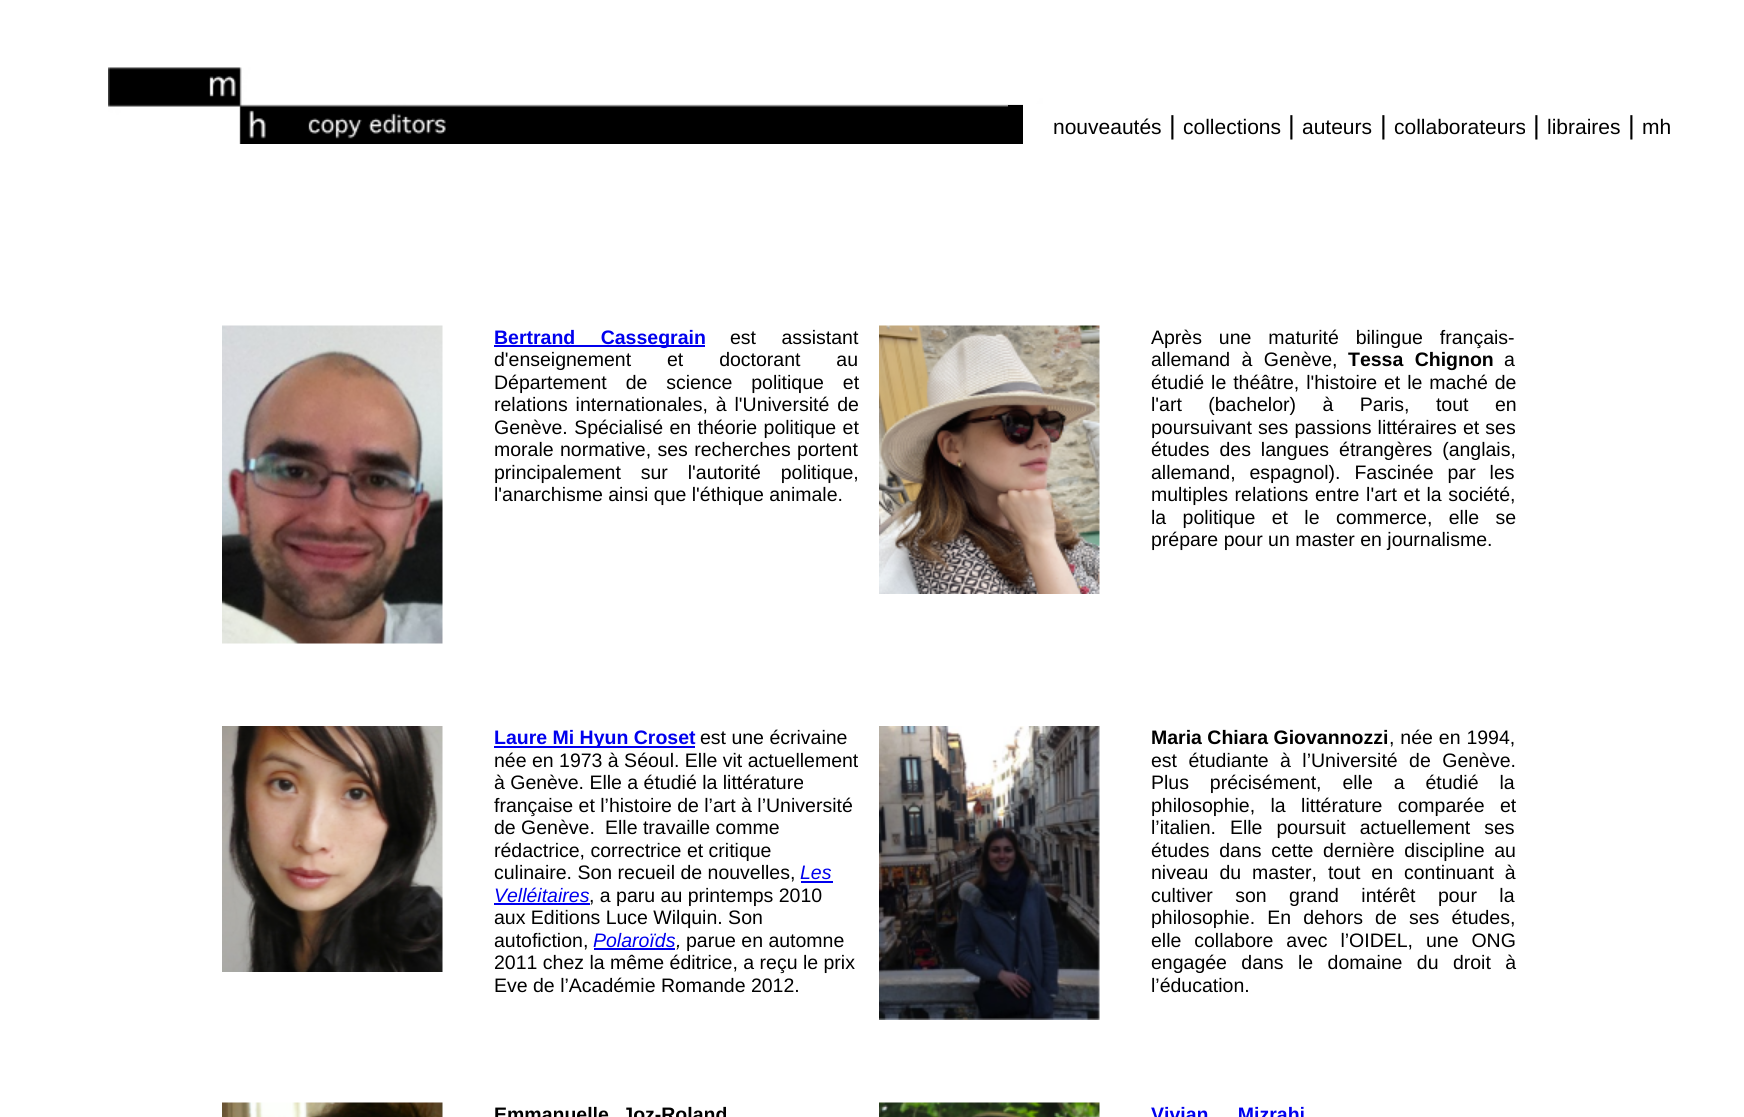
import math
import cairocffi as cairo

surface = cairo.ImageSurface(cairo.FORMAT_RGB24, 1744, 1117)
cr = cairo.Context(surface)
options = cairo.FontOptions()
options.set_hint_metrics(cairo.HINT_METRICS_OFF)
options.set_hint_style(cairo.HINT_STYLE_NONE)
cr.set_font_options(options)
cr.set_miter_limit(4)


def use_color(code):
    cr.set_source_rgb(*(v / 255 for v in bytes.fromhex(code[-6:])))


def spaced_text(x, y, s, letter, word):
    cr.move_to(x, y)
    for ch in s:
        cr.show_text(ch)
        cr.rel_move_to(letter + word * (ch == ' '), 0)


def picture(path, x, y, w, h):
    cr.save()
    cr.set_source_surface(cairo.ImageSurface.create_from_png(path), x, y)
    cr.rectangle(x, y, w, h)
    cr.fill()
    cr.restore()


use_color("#ffffff")
cr.paint()
picture("img1.png", 108, 67, 935, 77)
use_color("#000000")
cr.rectangle(1008, 105, 15, 2)
cr.fill()
use_color("#ffffff")
cr.rectangle(1023, 104, 20, 40)
cr.fill()
cr.select_font_face("Liberation Sans")
cr.set_font_size(21)
use_color("#000000")
cr.move_to(1053, 134)
cr.show_text("nouveautés")
cr.set_font_size(26)
cr.move_to(1169, 134)
cr.show_text("|")
cr.set_font_size(21)
cr.move_to(1183, 134)
cr.show_text("collections")
cr.set_font_size(26)
cr.move_to(1288, 134)
cr.show_text("|")
cr.set_font_size(21)
cr.move_to(1302, 134)
cr.show_text("auteurs")
cr.set_font_size(26)
cr.move_to(1380, 134)
cr.show_text("|")
cr.set_font_size(21)
cr.move_to(1394, 134)
cr.show_text("collaborateurs")
cr.set_font_size(26)
cr.move_to(1533, 134)
cr.show_text("|")
cr.set_font_size(21)
cr.move_to(1547, 134)
cr.show_text("libraires")
cr.set_font_size(26)
cr.move_to(1628, 134)
cr.show_text("|")
cr.set_font_size(21)
cr.move_to(1642, 134)
cr.show_text("mh")
picture("img2.png", 222, 325, 221, 319)
use_color("#0000ee")
cr.rectangle(494, 345, 211, 2)
cr.fill()
cr.select_font_face("Liberation Sans", cairo.FONT_SLANT_NORMAL, cairo.FONT_WEIGHT_BOLD)
cr.set_font_size(19.5)
spaced_text(494, 344, "Bertrand Cassegrain", 0, 20)
cr.select_font_face("Liberation Sans")
use_color("#000000")
spaced_text(730, 344, "est assistant", 0, 20)
spaced_text(494, 366, "d'enseignement et doctorant au", 0, 30.5)
spaced_text(494, 389, "Département de science politique et", 0, 13.5)
spaced_text(494, 411, "relations internationales, à l'Université de", 0, 2.5)
spaced_text(494, 434, "Genève. Spécialisé en théorie politique et", 0, 1)
spaced_text(494, 456, "morale normative, ses recherches portent", 0, 1)
spaced_text(494, 479, "principalement sur l'autorité politique,", 0, 14.5)
cr.move_to(494, 501)
cr.show_text("l'anarchisme ainsi que l'éthique animale.")
picture("img3.png", 879, 325, 221, 269)
spaced_text(1151, 344, "Après une maturité bilingue français-", 0, 11.5)
spaced_text(1151, 366, "allemand à Genève,", 0, 6)
cr.select_font_face("Liberation Sans", cairo.FONT_SLANT_NORMAL, cairo.FONT_WEIGHT_BOLD)
spaced_text(1348, 366, "Tessa Chignon", 0, 6)
cr.select_font_face("Liberation Sans")
cr.move_to(1504, 366)
cr.show_text("a")
spaced_text(1151, 389, "étudié le théâtre, l'histoire et le maché de", 0, 1.5)
spaced_text(1151, 411, "l'art (bachelor) à Paris, tout en", 0, 21)
spaced_text(1151, 434, "poursuivant ses passions littéraires et ses", 0, 0.75)
spaced_text(1151, 456, "études des langues étrangères (anglais,", 0, 4.5)
spaced_text(1151, 479, "allemand, espagnol). Fascinée par les", 0, 8.5)
spaced_text(1151, 501, "multiples relations entre l'art et la société,", 0, 1.25)
spaced_text(1151, 524, "la politique et le commerce, elle se", 0, 11)
cr.move_to(1151, 546)
cr.show_text("prépare pour un master en journalisme.")
picture("img4.png", 222, 726, 221, 246)
use_color("#0000ee")
cr.rectangle(494, 746, 201, 2)
cr.fill()
cr.select_font_face("Liberation Sans", cairo.FONT_SLANT_NORMAL, cairo.FONT_WEIGHT_BOLD)
cr.move_to(494, 744)
cr.show_text("Laure Mi Hyun Croset")
cr.select_font_face("Liberation Sans")
use_color("#000000")
cr.move_to(700, 744)
cr.show_text("est une écrivaine")
cr.move_to(494, 767)
cr.show_text("née en 1973 à Séoul. Elle vit actuellement")
cr.move_to(494, 789)
cr.show_text("à Genève. Elle a étudié la littérature")
cr.move_to(494, 812)
cr.show_text("française et l’histoire de l’art à l’Université")
cr.move_to(494, 834)
cr.show_text("de Genève.")
cr.move_to(605, 834)
cr.show_text("Elle travaille comme")
cr.move_to(494, 857)
cr.show_text("rédactrice, correctrice et critique")
cr.move_to(494, 879)
cr.show_text("culinaire. Son recueil de nouvelles,")
cr.select_font_face("Liberation Sans", cairo.FONT_SLANT_ITALIC)
use_color("#0000ee")
cr.move_to(800, 879)
cr.show_text("Les")
cr.rectangle(801, 881, 32, 2)
cr.fill()
cr.move_to(494, 902)
cr.show_text("Velléitaires")
cr.select_font_face("Liberation Sans")
use_color("#000000")
cr.move_to(589, 902)
cr.show_text(", a paru au printemps 2010")
use_color("#0000ee")
cr.rectangle(494, 903, 96, 2)
cr.fill()
use_color("#000000")
cr.move_to(494, 924)
cr.show_text("aux Editions Luce Wilquin. Son")
cr.move_to(494, 947)
cr.show_text("autofiction,")
cr.select_font_face("Liberation Sans", cairo.FONT_SLANT_ITALIC)
use_color("#0000ee")
cr.move_to(593, 947)
cr.show_text("Polaroïds")
use_color("#000000")
cr.move_to(676, 947)
cr.show_text(",")
use_color("#0000ee")
cr.rectangle(594, 948, 81, 2)
cr.fill()
cr.select_font_face("Liberation Sans")
use_color("#000000")
cr.move_to(686, 947)
cr.show_text("parue en automne")
cr.move_to(494, 969)
cr.show_text("2011 chez la même éditrice, a reçu le prix")
cr.move_to(494, 992)
cr.show_text("Eve de l’Académie Romande 2012.")
picture("img5.png", 879, 726, 221, 294)
cr.select_font_face("Liberation Sans", cairo.FONT_SLANT_NORMAL, cairo.FONT_WEIGHT_BOLD)
cr.move_to(1151, 744)
cr.show_text("Maria Chiara Giovannozzi")
cr.select_font_face("Liberation Sans")
spaced_text(1389, 744, ", née en 1994,", 0, 0.5)
spaced_text(1151, 767, "est étudiante à l’Université de Genève.", 0, 6)
spaced_text(1151, 789, "Plus précisément, elle a étudié la", 0, 15.5)
spaced_text(1151, 812, "philosophie, la littérature comparée et", 0, 10)
spaced_text(1151, 834, "l’italien. Elle poursuit actuellement ses", 0, 8.5)
spaced_text(1151, 857, "études dans cette dernière discipline au", 0, 4.25)
spaced_text(1151, 879, "niveau du master, tout en continuant à", 0, 5.5)
spaced_text(1151, 902, "cultiver son grand intérêt pour la", 0, 17)
spaced_text(1151, 924, "philosophie. En dehors de ses études,", 0, 6.75)
spaced_text(1151, 947, "elle collabore avec l’OIDEL, une ONG", 0, 7.5)
spaced_text(1151, 969, "engagée dans le domaine du droit à", 0, 9)
cr.move_to(1151, 992)
cr.show_text("l’éducation.")
picture("img6.png", 222, 1102, 221, 15)
cr.select_font_face("Liberation Sans", cairo.FONT_SLANT_NORMAL, cairo.FONT_WEIGHT_BOLD)
spaced_text(494, 1121, "Emmanuelle Joz-Roland", 0, 8)
picture("img7.png", 879, 1102, 221, 15)
use_color("#0000ee")
spaced_text(1151, 1121, "Vivian Mizrahi", 0, 24)
surface.write_to_png("result.png")
